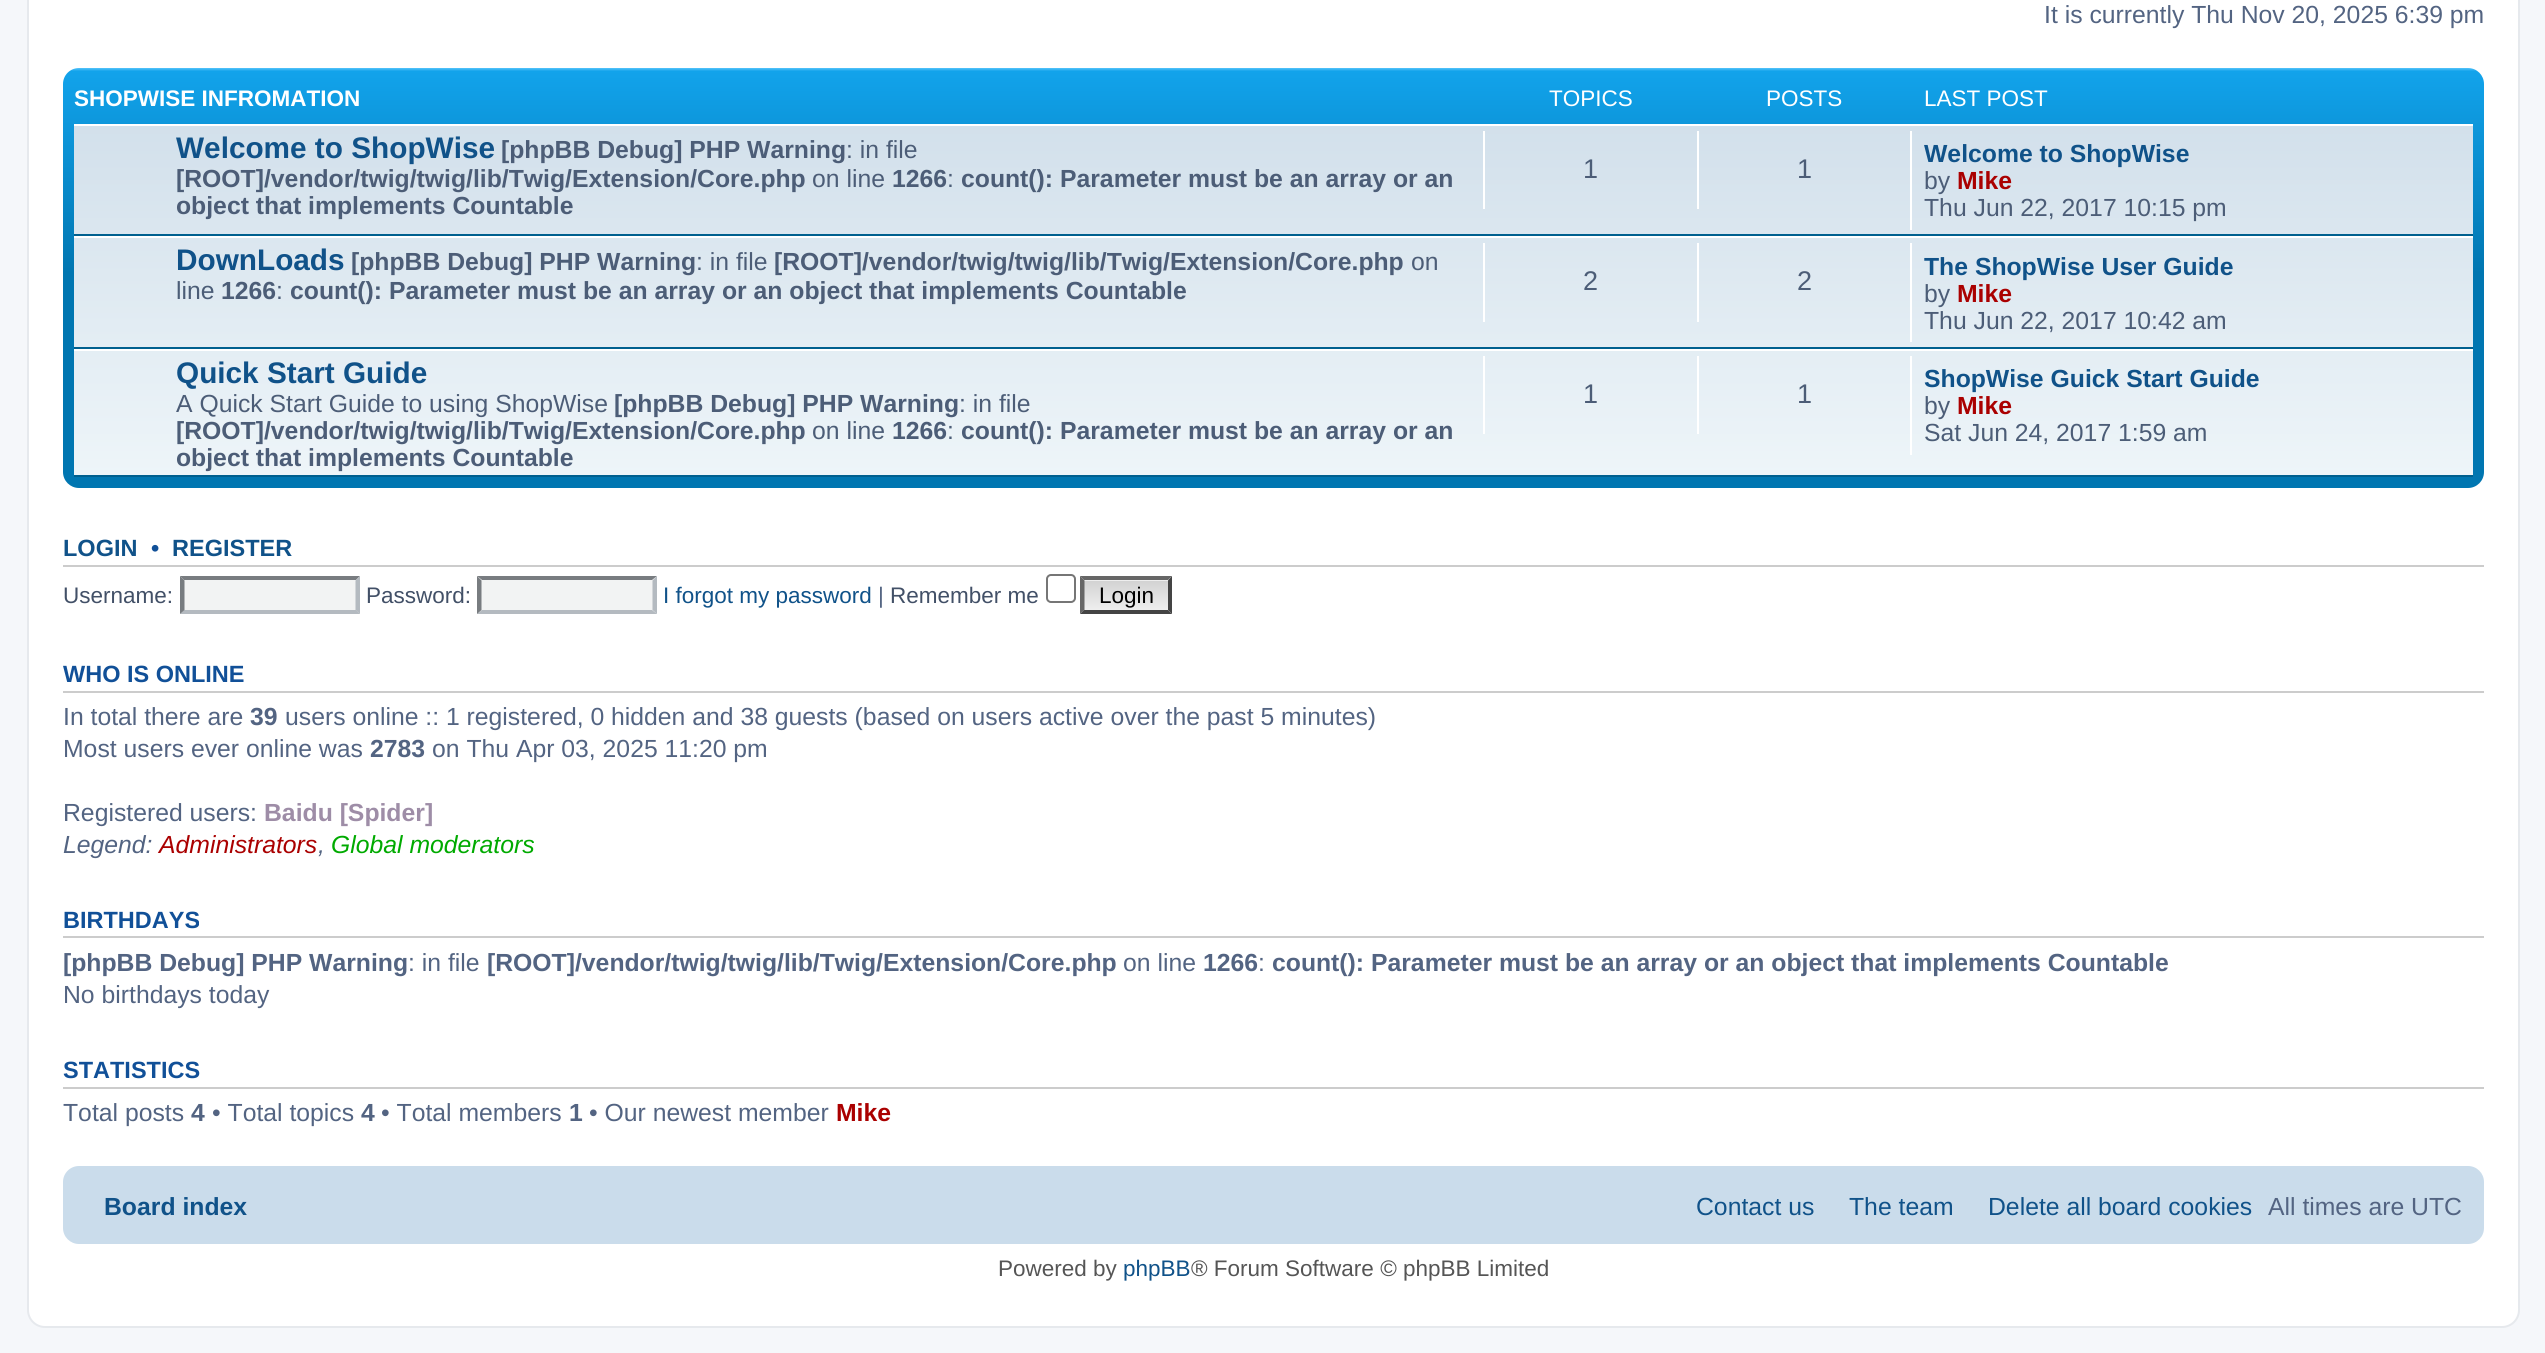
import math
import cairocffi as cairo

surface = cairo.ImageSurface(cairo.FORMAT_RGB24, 2545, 1353)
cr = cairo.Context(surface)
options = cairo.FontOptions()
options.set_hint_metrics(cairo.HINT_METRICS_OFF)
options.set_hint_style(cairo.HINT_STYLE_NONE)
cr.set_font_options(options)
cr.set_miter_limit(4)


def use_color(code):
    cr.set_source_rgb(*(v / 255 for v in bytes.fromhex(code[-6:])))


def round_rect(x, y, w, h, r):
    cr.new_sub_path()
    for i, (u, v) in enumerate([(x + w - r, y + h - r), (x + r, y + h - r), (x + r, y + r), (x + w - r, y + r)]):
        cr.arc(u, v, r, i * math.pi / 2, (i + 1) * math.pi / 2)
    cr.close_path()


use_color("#f5f7fa")
cr.paint()
use_color("#ffffff")
round_rect(28, -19, 2491, 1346, 17)
cr.fill_preserve()
use_color("#e6e9ed")
cr.stroke()
cr.select_font_face("Liberation Sans")
cr.set_font_size(24.75)
use_color("#536482")
cr.move_to(2044, 23)
cr.show_text("It is currently Thu Nov 20, 2025 6:39 pm")
gradient = cairo.LinearGradient(1274, 67, 1274, 488)
gradient.add_color_stop_rgba(0, 0.416, 0.808, 1, 1)
gradient.add_color_stop_rgba(0.01, 0.071, 0.639, 0.922, 1)
gradient.add_color_stop_rgba(0.49, 0, 0.463, 0.694, 1)
gradient.add_color_stop_rgba(1, 0, 0.463, 0.694, 1)
cr.set_source(gradient)
round_rect(63, 68, 2421, 420, 16)
cr.fill()
cr.select_font_face("Liberation Sans", cairo.FONT_SLANT_NORMAL, cairo.FONT_WEIGHT_BOLD)
cr.set_font_size(22.5)
use_color("#ffffff")
cr.move_to(74, 106)
cr.show_text("SHOPWISE INFROMATION")
cr.select_font_face("Liberation Sans")
cr.move_to(1549, 106)
cr.show_text("TOPICS")
cr.move_to(1766, 106)
cr.show_text("POSTS")
cr.move_to(1924, 106)
cr.show_text("LAST POST")
gradient = cairo.LinearGradient(1274, 124, 1274, 477)
gradient.add_color_stop_rgba(0, 0.824, 0.878, 0.922, 1)
gradient.add_color_stop_rgba(1, 0.933, 0.961, 0.976, 1)
cr.set_source(gradient)
cr.rectangle(74, 126, 2399, 349)
cr.fill()
use_color("#ffffff")
cr.rectangle(74, 124, 2399, 2)
cr.fill()
use_color("#00608f")
cr.rectangle(74, 234, 2399, 2)
cr.fill()
cr.select_font_face("Liberation Sans", cairo.FONT_SLANT_NORMAL, cairo.FONT_WEIGHT_BOLD)
cr.set_font_size(29.75)
use_color("#105289")
cr.move_to(176, 158)
cr.show_text("Welcome to ShopWise")
cr.set_font_size(24.75)
use_color("#4c5d77")
cr.move_to(501, 158)
cr.show_text("[phpBB Debug] PHP Warning")
cr.select_font_face("Liberation Sans")
cr.move_to(846, 158)
cr.show_text(": in file")
cr.select_font_face("Liberation Sans", cairo.FONT_SLANT_NORMAL, cairo.FONT_WEIGHT_BOLD)
cr.move_to(176, 187)
cr.show_text("[ROOT]/vendor/twig/twig/lib/Twig/Extension/Core.php")
cr.select_font_face("Liberation Sans")
cr.move_to(812, 187)
cr.show_text("on line")
cr.select_font_face("Liberation Sans", cairo.FONT_SLANT_NORMAL, cairo.FONT_WEIGHT_BOLD)
cr.move_to(892, 187)
cr.show_text("1266")
cr.select_font_face("Liberation Sans")
cr.move_to(947, 187)
cr.show_text(":")
cr.select_font_face("Liberation Sans", cairo.FONT_SLANT_NORMAL, cairo.FONT_WEIGHT_BOLD)
cr.move_to(961, 187)
cr.show_text("count(): Parameter must be an array or an")
cr.move_to(176, 214)
cr.show_text("object that implements Countable")
use_color("#ffffff")
cr.rectangle(1483, 131, 2, 78)
cr.fill()
cr.select_font_face("Liberation Sans")
cr.set_font_size(27)
use_color("#4c5d77")
cr.move_to(1583, 178)
cr.show_text("1")
use_color("#ffffff")
cr.rectangle(1697, 131, 2, 78)
cr.fill()
use_color("#4c5d77")
cr.move_to(1797, 178)
cr.show_text("1")
use_color("#ffffff")
cr.rectangle(1910, 131, 2, 99)
cr.fill()
cr.select_font_face("Liberation Sans", cairo.FONT_SLANT_NORMAL, cairo.FONT_WEIGHT_BOLD)
cr.set_font_size(24.75)
use_color("#105289")
cr.move_to(1924, 162)
cr.show_text("Welcome to ShopWise")
cr.select_font_face("Liberation Sans")
use_color("#4c5d77")
cr.move_to(1924, 189)
cr.show_text("by")
cr.select_font_face("Liberation Sans", cairo.FONT_SLANT_NORMAL, cairo.FONT_WEIGHT_BOLD)
use_color("#aa0000")
cr.move_to(1957, 189)
cr.show_text("Mike")
cr.select_font_face("Liberation Sans")
use_color("#4c5d77")
cr.move_to(1924, 216)
cr.show_text("Thu Jun 22, 2017 10:15 pm")
use_color("#ffffff")
cr.rectangle(74, 236, 2399, 2)
cr.fill()
use_color("#00608f")
cr.rectangle(74, 347, 2399, 2)
cr.fill()
cr.select_font_face("Liberation Sans", cairo.FONT_SLANT_NORMAL, cairo.FONT_WEIGHT_BOLD)
cr.set_font_size(29.75)
use_color("#105289")
cr.move_to(176, 270)
cr.show_text("DownLoads")
cr.set_font_size(24.75)
use_color("#4c5d77")
cr.move_to(351, 270)
cr.show_text("[phpBB Debug] PHP Warning")
cr.select_font_face("Liberation Sans")
cr.move_to(696, 270)
cr.show_text(": in file")
cr.select_font_face("Liberation Sans", cairo.FONT_SLANT_NORMAL, cairo.FONT_WEIGHT_BOLD)
cr.move_to(774, 270)
cr.show_text("[ROOT]/vendor/twig/twig/lib/Twig/Extension/Core.php")
cr.select_font_face("Liberation Sans")
cr.move_to(1411, 270)
cr.show_text("on")
cr.move_to(176, 299)
cr.show_text("line")
cr.select_font_face("Liberation Sans", cairo.FONT_SLANT_NORMAL, cairo.FONT_WEIGHT_BOLD)
cr.move_to(221, 299)
cr.show_text("1266")
cr.select_font_face("Liberation Sans")
cr.move_to(276, 299)
cr.show_text(":")
cr.select_font_face("Liberation Sans", cairo.FONT_SLANT_NORMAL, cairo.FONT_WEIGHT_BOLD)
cr.move_to(290, 299)
cr.show_text("count(): Parameter must be an array or an object that implements Countable")
use_color("#ffffff")
cr.rectangle(1483, 243, 2, 79)
cr.fill()
cr.select_font_face("Liberation Sans")
cr.set_font_size(27)
use_color("#4c5d77")
cr.move_to(1583, 290)
cr.show_text("2")
use_color("#ffffff")
cr.rectangle(1697, 243, 2, 79)
cr.fill()
use_color("#4c5d77")
cr.move_to(1797, 290)
cr.show_text("2")
use_color("#ffffff")
cr.rectangle(1910, 243, 2, 99)
cr.fill()
cr.select_font_face("Liberation Sans", cairo.FONT_SLANT_NORMAL, cairo.FONT_WEIGHT_BOLD)
cr.set_font_size(24.75)
use_color("#105289")
cr.move_to(1924, 275)
cr.show_text("The ShopWise User Guide")
cr.select_font_face("Liberation Sans")
use_color("#4c5d77")
cr.move_to(1924, 302)
cr.show_text("by")
cr.select_font_face("Liberation Sans", cairo.FONT_SLANT_NORMAL, cairo.FONT_WEIGHT_BOLD)
use_color("#aa0000")
cr.move_to(1957, 302)
cr.show_text("Mike")
cr.select_font_face("Liberation Sans")
use_color("#4c5d77")
cr.move_to(1924, 329)
cr.show_text("Thu Jun 22, 2017 10:42 am")
use_color("#ffffff")
cr.rectangle(74, 349, 2399, 2)
cr.fill()
use_color("#00608f")
cr.rectangle(74, 475, 2399, 2)
cr.fill()
cr.select_font_face("Liberation Sans", cairo.FONT_SLANT_NORMAL, cairo.FONT_WEIGHT_BOLD)
cr.set_font_size(29.75)
use_color("#105289")
cr.move_to(176, 383)
cr.show_text("Quick Start Guide")
cr.select_font_face("Liberation Sans")
cr.set_font_size(24.75)
use_color("#4c5d77")
cr.move_to(176, 412)
cr.show_text("A Quick Start Guide to using ShopWise")
cr.select_font_face("Liberation Sans", cairo.FONT_SLANT_NORMAL, cairo.FONT_WEIGHT_BOLD)
cr.move_to(614, 412)
cr.show_text("[phpBB Debug] PHP Warning")
cr.select_font_face("Liberation Sans")
cr.move_to(959, 412)
cr.show_text(": in file")
cr.select_font_face("Liberation Sans", cairo.FONT_SLANT_NORMAL, cairo.FONT_WEIGHT_BOLD)
cr.move_to(176, 439)
cr.show_text("[ROOT]/vendor/twig/twig/lib/Twig/Extension/Core.php")
cr.select_font_face("Liberation Sans")
cr.move_to(812, 439)
cr.show_text("on line")
cr.select_font_face("Liberation Sans", cairo.FONT_SLANT_NORMAL, cairo.FONT_WEIGHT_BOLD)
cr.move_to(892, 439)
cr.show_text("1266")
cr.select_font_face("Liberation Sans")
cr.move_to(947, 439)
cr.show_text(":")
cr.select_font_face("Liberation Sans", cairo.FONT_SLANT_NORMAL, cairo.FONT_WEIGHT_BOLD)
cr.move_to(961, 439)
cr.show_text("count(): Parameter must be an array or an")
cr.move_to(176, 466)
cr.show_text("object that implements Countable")
use_color("#ffffff")
cr.rectangle(1483, 356, 2, 78)
cr.fill()
cr.select_font_face("Liberation Sans")
cr.set_font_size(27)
use_color("#4c5d77")
cr.move_to(1583, 403)
cr.show_text("1")
use_color("#ffffff")
cr.rectangle(1697, 356, 2, 78)
cr.fill()
use_color("#4c5d77")
cr.move_to(1797, 403)
cr.show_text("1")
use_color("#ffffff")
cr.rectangle(1910, 356, 2, 99)
cr.fill()
cr.select_font_face("Liberation Sans", cairo.FONT_SLANT_NORMAL, cairo.FONT_WEIGHT_BOLD)
cr.set_font_size(24.75)
use_color("#105289")
cr.move_to(1924, 387)
cr.show_text("ShopWise Guick Start Guide")
cr.select_font_face("Liberation Sans")
use_color("#4c5d77")
cr.move_to(1924, 414)
cr.show_text("by")
cr.select_font_face("Liberation Sans", cairo.FONT_SLANT_NORMAL, cairo.FONT_WEIGHT_BOLD)
use_color("#aa0000")
cr.move_to(1957, 414)
cr.show_text("Mike")
cr.select_font_face("Liberation Sans")
use_color("#4c5d77")
cr.move_to(1924, 441)
cr.show_text("Sat Jun 24, 2017 1:59 am")
use_color("#cccccc")
cr.rectangle(63, 565, 2421, 2)
cr.fill()
cr.select_font_face("Liberation Sans", cairo.FONT_SLANT_NORMAL, cairo.FONT_WEIGHT_BOLD)
cr.set_font_size(23.5)
use_color("#105289")
cr.move_to(63, 556)
cr.show_text("LOGIN")
use_color("#115098")
cr.move_to(151, 556)
cr.show_text("•")
use_color("#105289")
cr.move_to(172, 556)
cr.show_text("REGISTER")
cr.select_font_face("Liberation Sans")
cr.set_font_size(22.5)
use_color("#425067")
cr.move_to(63, 603)
cr.show_text("Username:")
use_color("#f2f3f3")
cr.rectangle(180, 576, 180, 38)
cr.fill()
use_color("#787c80")
cr.new_path()
cr.move_to(180, 576)
cr.line_to(360, 576)
cr.line_to(356, 580)
cr.line_to(184, 580)
cr.close_path()
cr.fill()
use_color("#b4bac0")
cr.new_path()
cr.move_to(360, 576)
cr.line_to(360, 614)
cr.line_to(355.5, 610)
cr.line_to(355.5, 580.5)
cr.close_path()
cr.fill()
cr.new_path()
cr.move_to(360, 614)
cr.line_to(180, 614)
cr.line_to(184, 610)
cr.line_to(356, 610)
cr.close_path()
cr.fill()
use_color("#787c80")
cr.new_path()
cr.move_to(180, 614)
cr.line_to(180, 576)
cr.line_to(184.5, 580.5)
cr.line_to(184.5, 610)
cr.close_path()
cr.fill()
use_color("#425067")
cr.move_to(366, 603)
cr.show_text("Password:")
use_color("#f2f3f3")
cr.rectangle(477, 576, 180, 38)
cr.fill()
use_color("#787c80")
cr.new_path()
cr.move_to(477, 576)
cr.line_to(657, 576)
cr.line_to(652, 580)
cr.line_to(482, 580)
cr.close_path()
cr.fill()
use_color("#b4bac0")
cr.new_path()
cr.move_to(657, 576)
cr.line_to(657, 614)
cr.line_to(652.5, 610)
cr.line_to(652.5, 580.5)
cr.close_path()
cr.fill()
cr.new_path()
cr.move_to(657, 614)
cr.line_to(477, 614)
cr.line_to(482, 610)
cr.line_to(652, 610)
cr.close_path()
cr.fill()
use_color("#787c80")
cr.new_path()
cr.move_to(477, 614)
cr.line_to(477, 576)
cr.line_to(481.5, 580.5)
cr.line_to(481.5, 610)
cr.close_path()
cr.fill()
use_color("#105289")
cr.move_to(663, 603)
cr.show_text("I forgot my password")
use_color("#536482")
cr.move_to(878, 603)
cr.show_text("|")
use_color("#425067")
cr.move_to(890, 603)
cr.show_text("Remember me")
round_rect(1047, 575, 28, 27, 4)
use_color("#767676")
cr.stroke()
gradient = cairo.LinearGradient(1126, 551, 1126, 581)
gradient.add_color_stop_rgba(0, 0.824, 0.824, 0.824, 1)
gradient.add_color_stop_rgba(1, 0.937, 0.937, 0.937, 1)
cr.set_source(gradient)
cr.rectangle(1080, 576, 92, 5)
cr.fill()
gradient = cairo.LinearGradient(1126, 581, 1126, 610)
gradient.add_color_stop_rgba(0, 0.824, 0.824, 0.824, 1)
gradient.add_color_stop_rgba(1, 0.937, 0.937, 0.937, 1)
cr.set_source(gradient)
cr.rectangle(1084, 581, 84, 29)
cr.fill()
use_color("#666666")
cr.new_path()
cr.move_to(1080, 576)
cr.line_to(1172, 576)
cr.line_to(1168, 580)
cr.line_to(1084, 580)
cr.close_path()
cr.fill()
use_color("#444444")
cr.new_path()
cr.move_to(1172, 576)
cr.line_to(1172, 614)
cr.line_to(1168, 610)
cr.line_to(1168, 580.5)
cr.close_path()
cr.fill()
cr.new_path()
cr.move_to(1172, 614)
cr.line_to(1080, 614)
cr.line_to(1084, 610)
cr.line_to(1168, 610)
cr.close_path()
cr.fill()
use_color("#666666")
cr.new_path()
cr.move_to(1080, 614)
cr.line_to(1080, 576)
cr.line_to(1084.5, 580.5)
cr.line_to(1084.5, 610)
cr.close_path()
cr.fill()
use_color("#000000")
cr.move_to(1099, 603)
cr.show_text("Login")
use_color("#cccccc")
cr.rectangle(63, 691, 2421, 2)
cr.fill()
cr.select_font_face("Liberation Sans", cairo.FONT_SLANT_NORMAL, cairo.FONT_WEIGHT_BOLD)
cr.set_font_size(23.5)
use_color("#115098")
cr.move_to(63, 682)
cr.show_text("WHO IS ONLINE")
cr.select_font_face("Liberation Sans")
cr.set_font_size(24.75)
use_color("#536482")
cr.move_to(63, 725)
cr.show_text("In total there are")
cr.select_font_face("Liberation Sans", cairo.FONT_SLANT_NORMAL, cairo.FONT_WEIGHT_BOLD)
cr.move_to(250, 725)
cr.show_text("39")
cr.select_font_face("Liberation Sans")
cr.move_to(285, 725)
cr.show_text("users online :: 1 registered, 0 hidden and 38 guests (based on users active over the past 5 minutes)")
cr.move_to(63, 757)
cr.show_text("Most users ever online was")
cr.select_font_face("Liberation Sans", cairo.FONT_SLANT_NORMAL, cairo.FONT_WEIGHT_BOLD)
cr.move_to(370, 757)
cr.show_text("2783")
cr.select_font_face("Liberation Sans")
cr.move_to(432, 757)
cr.show_text("on Thu Apr 03, 2025 11:20 pm")
cr.move_to(63, 821)
cr.show_text("Registered users:")
cr.select_font_face("Liberation Sans", cairo.FONT_SLANT_NORMAL, cairo.FONT_WEIGHT_BOLD)
use_color("#9e8da7")
cr.move_to(264, 821)
cr.show_text("Baidu [Spider]")
cr.select_font_face("Liberation Sans", cairo.FONT_SLANT_ITALIC)
use_color("#536482")
cr.move_to(63, 853)
cr.show_text("Legend:")
use_color("#aa0000")
cr.move_to(159, 853)
cr.show_text("Administrators")
use_color("#536482")
cr.move_to(318, 853)
cr.show_text(",")
use_color("#00aa00")
cr.move_to(331, 853)
cr.show_text("Global moderators")
use_color("#cccccc")
cr.rectangle(63, 936, 2421, 2)
cr.fill()
cr.select_font_face("Liberation Sans", cairo.FONT_SLANT_NORMAL, cairo.FONT_WEIGHT_BOLD)
cr.set_font_size(23.5)
use_color("#115098")
cr.move_to(63, 928)
cr.show_text("BIRTHDAYS")
cr.set_font_size(24.75)
use_color("#536482")
cr.move_to(63, 971)
cr.show_text("[phpBB Debug] PHP Warning")
cr.select_font_face("Liberation Sans")
cr.move_to(408, 971)
cr.show_text(": in file")
cr.select_font_face("Liberation Sans", cairo.FONT_SLANT_NORMAL, cairo.FONT_WEIGHT_BOLD)
cr.move_to(487, 971)
cr.show_text("[ROOT]/vendor/twig/twig/lib/Twig/Extension/Core.php")
cr.select_font_face("Liberation Sans")
cr.move_to(1123, 971)
cr.show_text("on line")
cr.select_font_face("Liberation Sans", cairo.FONT_SLANT_NORMAL, cairo.FONT_WEIGHT_BOLD)
cr.move_to(1203, 971)
cr.show_text("1266")
cr.select_font_face("Liberation Sans")
cr.move_to(1258, 971)
cr.show_text(":")
cr.select_font_face("Liberation Sans", cairo.FONT_SLANT_NORMAL, cairo.FONT_WEIGHT_BOLD)
cr.move_to(1272, 971)
cr.show_text("count(): Parameter must be an array or an object that implements Countable")
cr.select_font_face("Liberation Sans")
cr.move_to(63, 1003)
cr.show_text("No birthdays today")
use_color("#cccccc")
cr.rectangle(63, 1087, 2421, 2)
cr.fill()
cr.select_font_face("Liberation Sans", cairo.FONT_SLANT_NORMAL, cairo.FONT_WEIGHT_BOLD)
cr.set_font_size(23.5)
use_color("#115098")
cr.move_to(63, 1078)
cr.show_text("STATISTICS")
cr.select_font_face("Liberation Sans")
cr.set_font_size(24.75)
use_color("#536482")
cr.move_to(63, 1121)
cr.show_text("Total posts")
cr.select_font_face("Liberation Sans", cairo.FONT_SLANT_NORMAL, cairo.FONT_WEIGHT_BOLD)
cr.move_to(191, 1121)
cr.show_text("4")
cr.select_font_face("Liberation Sans")
cr.move_to(212, 1121)
cr.show_text("• Total topics")
cr.select_font_face("Liberation Sans", cairo.FONT_SLANT_NORMAL, cairo.FONT_WEIGHT_BOLD)
cr.move_to(361, 1121)
cr.show_text("4")
cr.select_font_face("Liberation Sans")
cr.move_to(381, 1121)
cr.show_text("• Total members")
cr.select_font_face("Liberation Sans", cairo.FONT_SLANT_NORMAL, cairo.FONT_WEIGHT_BOLD)
cr.move_to(569, 1121)
cr.show_text("1")
cr.select_font_face("Liberation Sans")
cr.move_to(589, 1121)
cr.show_text("• Our newest member")
cr.select_font_face("Liberation Sans", cairo.FONT_SLANT_NORMAL, cairo.FONT_WEIGHT_BOLD)
use_color("#aa0000")
cr.move_to(836, 1121)
cr.show_text("Mike")
use_color("#cadceb")
round_rect(63, 1166, 2421, 78, 16)
cr.fill()
use_color("#105289")
cr.move_to(104, 1215)
cr.show_text("Board index")
cr.select_font_face("Liberation Sans")
cr.move_to(1696, 1215)
cr.show_text("Contact us")
cr.move_to(1849, 1215)
cr.show_text("The team")
cr.move_to(1988, 1215)
cr.show_text("Delete all board cookies")
use_color("#536482")
cr.move_to(2268, 1215)
cr.show_text("All times are UTC")
cr.set_font_size(22.5)
use_color("#555555")
cr.move_to(998, 1276)
cr.show_text("Powered by")
use_color("#105289")
cr.move_to(1123, 1276)
cr.show_text("phpBB")
use_color("#555555")
cr.move_to(1191, 1276)
cr.show_text("® Forum Software © phpBB Limited")
surface.write_to_png("result.png")
